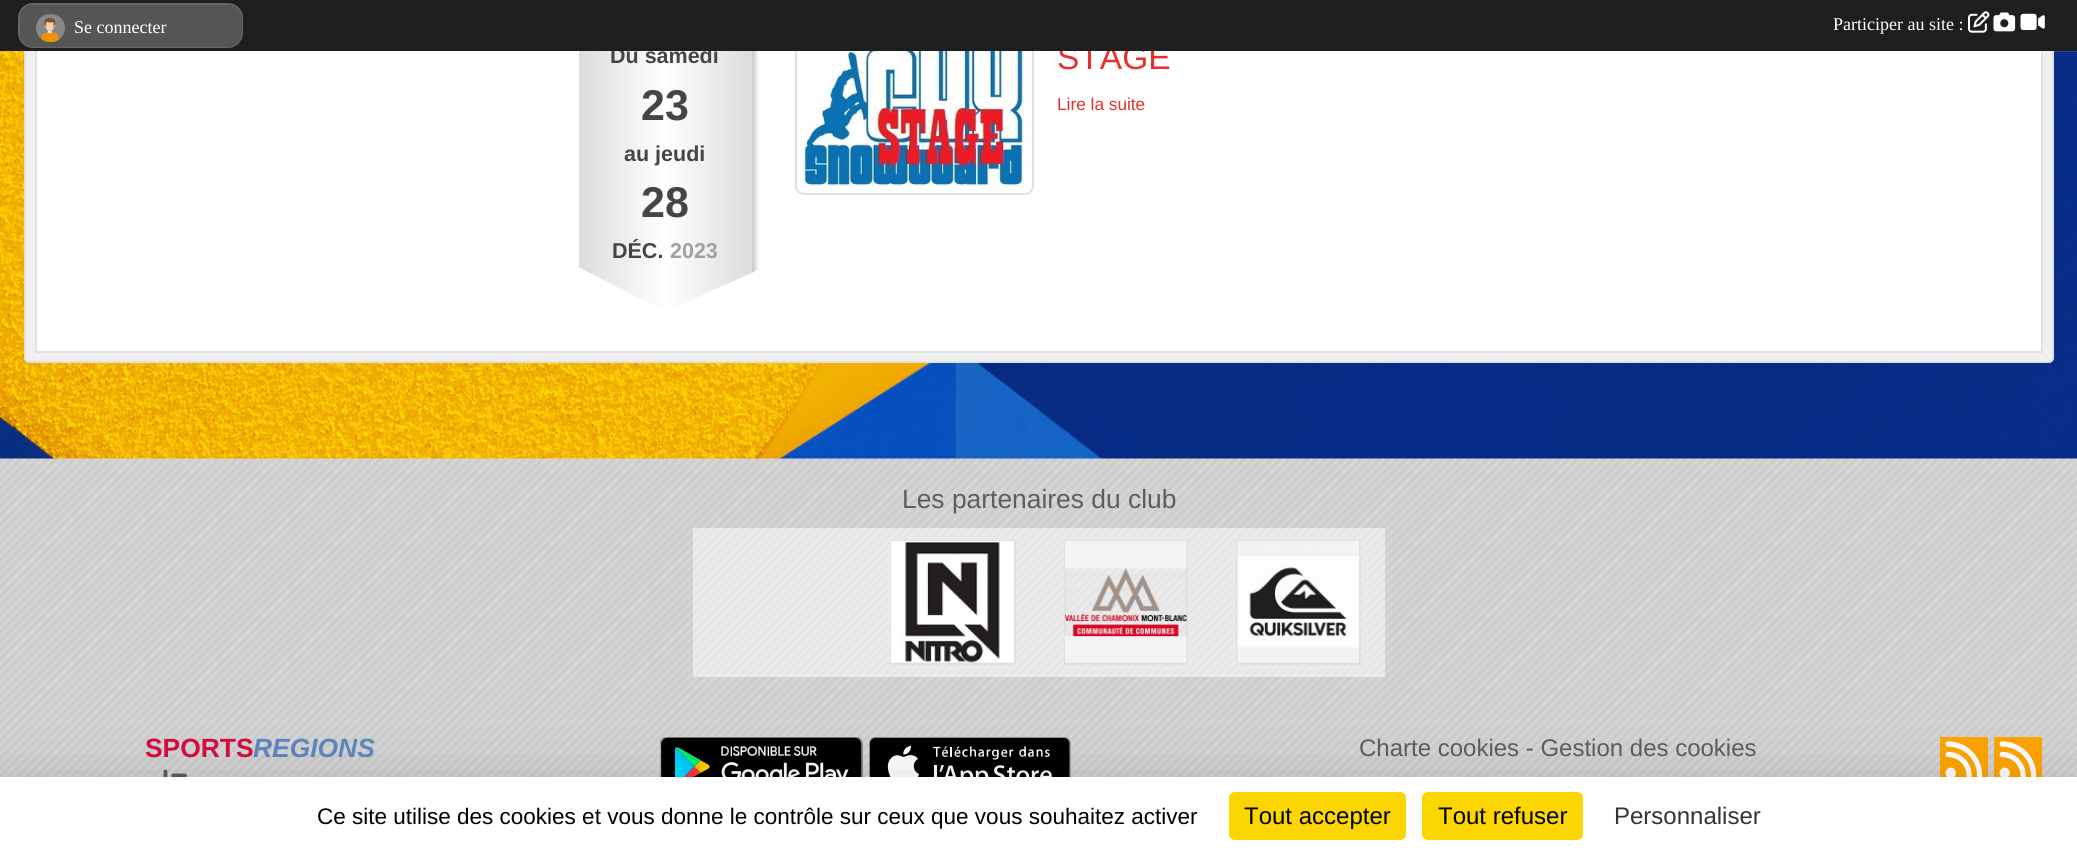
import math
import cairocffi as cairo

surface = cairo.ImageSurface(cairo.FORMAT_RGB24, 2077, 855)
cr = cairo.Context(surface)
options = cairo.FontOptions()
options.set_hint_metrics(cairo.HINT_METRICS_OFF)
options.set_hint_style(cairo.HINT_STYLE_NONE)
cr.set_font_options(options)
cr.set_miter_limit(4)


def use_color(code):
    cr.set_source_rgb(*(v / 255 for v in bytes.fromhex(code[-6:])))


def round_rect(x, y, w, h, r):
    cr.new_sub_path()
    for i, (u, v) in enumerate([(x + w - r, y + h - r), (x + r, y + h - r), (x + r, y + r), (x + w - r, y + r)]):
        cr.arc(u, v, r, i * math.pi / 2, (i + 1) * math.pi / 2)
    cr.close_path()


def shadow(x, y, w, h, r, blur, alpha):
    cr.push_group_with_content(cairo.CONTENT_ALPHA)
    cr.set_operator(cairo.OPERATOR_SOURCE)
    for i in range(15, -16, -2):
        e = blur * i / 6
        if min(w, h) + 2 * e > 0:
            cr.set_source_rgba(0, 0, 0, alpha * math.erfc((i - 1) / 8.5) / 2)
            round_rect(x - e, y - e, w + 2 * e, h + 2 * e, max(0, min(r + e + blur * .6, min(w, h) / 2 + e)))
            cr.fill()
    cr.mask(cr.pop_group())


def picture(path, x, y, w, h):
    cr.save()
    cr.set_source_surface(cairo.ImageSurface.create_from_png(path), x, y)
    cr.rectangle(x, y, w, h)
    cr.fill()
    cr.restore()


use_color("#ffffff")
cr.paint()
picture("img1.png", 0, 51, 2077, 408)
use_color("#f0f0f0")
round_rect(25, -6, 2028, 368, 4)
cr.fill_preserve()
use_color("#e1e1e1")
cr.stroke()
use_color("#ffffff")
cr.rectangle(37, 51, 2004, 300)
cr.fill()
cr.rectangle(36, -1, 2006, 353)
use_color("#e1e1e1")
cr.stroke()
use_color("#cccccc")
shadow(584, 35, 172, 273, 0, 2, 1)
gradient = cairo.LinearGradient(581, 176, 750, 176)
gradient.add_color_stop_rgba(0, 0.867, 0.867, 0.867, 1)
gradient.add_color_stop_rgba(0.5, 1, 1, 1, 1)
gradient.add_color_stop_rgba(1, 0.867, 0.867, 0.867, 1)
cr.set_source(gradient)
cr.rectangle(581, 51, 169, 261)
cr.fill()
cr.select_font_face("Liberation Sans", cairo.FONT_SLANT_NORMAL, cairo.FONT_WEIGHT_BOLD)
cr.set_font_size(21.5)
use_color("#454545")
cr.move_to(610, 63)
cr.show_text("Du samedi")
round_rect(796, 40, 237, 154, 8)
use_color("#dee2e6")
cr.stroke()
cr.select_font_face("Liberation Sans")
cr.set_font_size(33.5)
use_color("#e6312e")
cr.move_to(1057, 69)
cr.show_text("STAGE")
use_color("#1e1e1e")
cr.rectangle(0, 0, 2077, 51)
cr.fill()
use_color("#333333")
round_rect(19, 4, 223, 43, 14)
cr.fill_preserve()
use_color("#666666")
cr.stroke()
use_color("#555555")
round_rect(20, 5, 222, 42, 14)
cr.fill()
picture("img2.png", 36, 14, 29, 28)
cr.select_font_face("Liberation Serif")
cr.set_font_size(18)
use_color("#ffffff")
cr.move_to(74, 33)
cr.show_text("Se connecter")
cr.move_to(1833, 30)
cr.show_text("Participer au site :")
picture("img3.png", 1968, 11, 22, 22)
picture("img4.png", 1993, 12, 23, 20)
picture("img5.png", 2020, 13, 25, 17)
gradient = cairo.LinearGradient(411, 176, 581, 176)
gradient.add_color_stop_rgba(0, 0.867, 0.867, 0.867, 1)
gradient.add_color_stop_rgba(0.5, 1, 1, 1, 1)
gradient.add_color_stop_rgba(1, 0.867, 0.867, 0.867, 1)
cr.set_source(gradient)
cr.rectangle(579, 51, 2, 218)
cr.fill()
gradient = cairo.LinearGradient(750, 176, 920, 176)
gradient.add_color_stop_rgba(0, 0.867, 0.867, 0.867, 1)
gradient.add_color_stop_rgba(0.5, 1, 1, 1, 1)
gradient.add_color_stop_rgba(1, 0.867, 0.867, 0.867, 1)
cr.set_source(gradient)
cr.rectangle(750, 51, 2, 223)
cr.fill()
cr.select_font_face("Liberation Sans", cairo.FONT_SLANT_NORMAL, cairo.FONT_WEIGHT_BOLD)
cr.set_font_size(43)
use_color("#454545")
cr.move_to(641, 120)
cr.show_text("23")
cr.set_font_size(21.5)
cr.move_to(624, 161)
cr.show_text("au jeudi")
cr.set_font_size(43)
cr.move_to(641, 217)
cr.show_text("28")
cr.set_font_size(21.5)
cr.move_to(612, 258)
cr.show_text("DÉC.")
use_color("#a2a1a1")
cr.move_to(670, 258)
cr.show_text("2023")
use_color("#ffffff")
cr.new_path()
cr.move_to(578, 312)
cr.line_to(578, 267)
cr.line_to(666, 312)
cr.close_path()
cr.fill()
cr.new_path()
cr.move_to(765, 267)
cr.line_to(765, 312)
cr.line_to(664, 312)
cr.close_path()
cr.fill()
picture("img6.png", 803, 51, 223, 136)
cr.select_font_face("Liberation Sans")
cr.set_font_size(17.25)
use_color("#e6312e")
cr.move_to(1057, 110)
cr.show_text("Lire la suite")
picture("img7.png", 0, 458, 2077, 319)
cr.set_font_size(26.4)
use_color("#5e5e5e")
cr.move_to(902, 508)
cr.show_text("Les partenaires du club")
cr.set_source_rgba(1, 1, 1, 0.5)
cr.rectangle(693, 528, 173, 149)
cr.fill()
cr.rectangle(866, 528, 174, 149)
cr.fill()
cr.rectangle(891, 541, 124, 123)
use_color("#dee2e6")
cr.stroke()
picture("img8.png", 891, 541, 123, 122)
cr.set_source_rgba(1, 1, 1, 0.5)
cr.rectangle(1040, 528, 172, 149)
cr.fill()
cr.rectangle(1065, 541, 122, 123)
use_color("#dee2e6")
cr.stroke()
picture("img9.png", 1065, 541, 122, 122)
cr.set_source_rgba(1, 1, 1, 0.5)
cr.rectangle(1212, 528, 173, 149)
cr.fill()
cr.rectangle(1237, 541, 123, 123)
use_color("#dee2e6")
cr.stroke()
picture("img10.png", 1237, 541, 122, 122)
cr.select_font_face("Liberation Sans", cairo.FONT_SLANT_NORMAL, cairo.FONT_WEIGHT_BOLD)
use_color("#d60c3e")
cr.move_to(145, 757)
cr.show_text("SPORTS")
cr.select_font_face("Liberation Sans", cairo.FONT_SLANT_ITALIC, cairo.FONT_WEIGHT_BOLD)
use_color("#5f88c0")
cr.move_to(253, 757)
cr.show_text("REGIONS")
picture("img11.png", 163, 769, 24, 8)
picture("img12.png", 660, 737, 203, 40)
picture("img13.png", 869, 737, 202, 40)
cr.select_font_face("Liberation Sans")
cr.set_font_size(24)
use_color("#5e5e5e")
cr.move_to(1359, 756)
cr.show_text("Charte cookies - Gestion des cookies")
use_color("#ffa500")
cr.rectangle(1940, 737, 48, 40)
cr.fill()
picture("img14.png", 1945, 741, 38, 36)
cr.rectangle(1994, 737, 48, 40)
cr.fill()
picture("img14.png", 1999, 741, 38, 36)
use_color("#000000")
shadow(0, 807, 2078, 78, 0, 45, 0.25)
use_color("#ffffff")
cr.rectangle(0, 777, 2077, 78)
cr.fill()
cr.set_font_size(22.5)
use_color("#000000")
cr.move_to(317, 824)
cr.show_text("Ce site utilise des cookies et vous donne le contrôle sur ceux que vous souhaitez activer")
use_color("#fbd600")
round_rect(1229, 792, 177, 48, 6)
cr.fill()
cr.set_font_size(24)
use_color("#000000")
cr.move_to(1244, 824)
cr.show_text("Tout accepter")
use_color("#fbd600")
round_rect(1422, 792, 161, 48, 6)
cr.fill()
use_color("#000000")
cr.move_to(1438, 824)
cr.show_text("Tout refuser")
use_color("#333333")
cr.move_to(1614, 824)
cr.show_text("Personnaliser")
surface.write_to_png("result.png")
